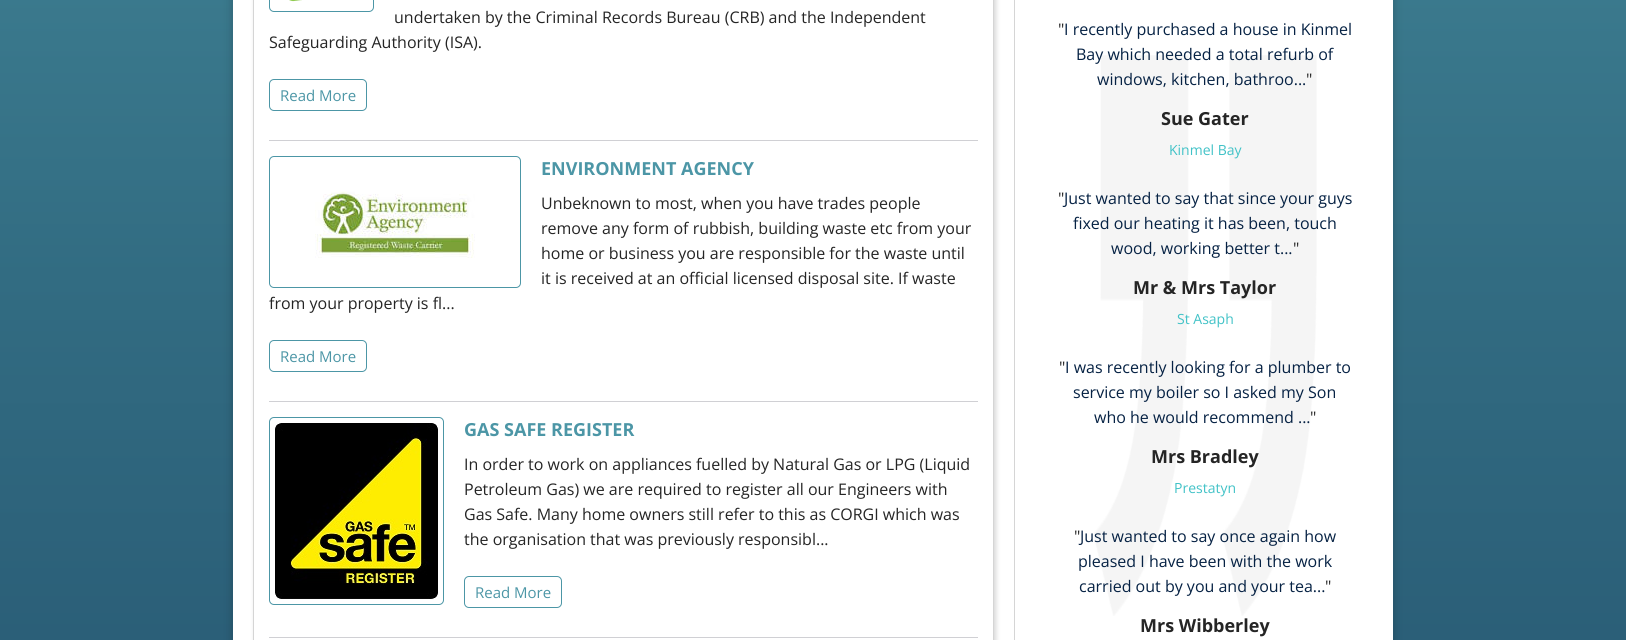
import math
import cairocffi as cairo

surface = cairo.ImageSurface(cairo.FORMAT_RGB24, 1626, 640)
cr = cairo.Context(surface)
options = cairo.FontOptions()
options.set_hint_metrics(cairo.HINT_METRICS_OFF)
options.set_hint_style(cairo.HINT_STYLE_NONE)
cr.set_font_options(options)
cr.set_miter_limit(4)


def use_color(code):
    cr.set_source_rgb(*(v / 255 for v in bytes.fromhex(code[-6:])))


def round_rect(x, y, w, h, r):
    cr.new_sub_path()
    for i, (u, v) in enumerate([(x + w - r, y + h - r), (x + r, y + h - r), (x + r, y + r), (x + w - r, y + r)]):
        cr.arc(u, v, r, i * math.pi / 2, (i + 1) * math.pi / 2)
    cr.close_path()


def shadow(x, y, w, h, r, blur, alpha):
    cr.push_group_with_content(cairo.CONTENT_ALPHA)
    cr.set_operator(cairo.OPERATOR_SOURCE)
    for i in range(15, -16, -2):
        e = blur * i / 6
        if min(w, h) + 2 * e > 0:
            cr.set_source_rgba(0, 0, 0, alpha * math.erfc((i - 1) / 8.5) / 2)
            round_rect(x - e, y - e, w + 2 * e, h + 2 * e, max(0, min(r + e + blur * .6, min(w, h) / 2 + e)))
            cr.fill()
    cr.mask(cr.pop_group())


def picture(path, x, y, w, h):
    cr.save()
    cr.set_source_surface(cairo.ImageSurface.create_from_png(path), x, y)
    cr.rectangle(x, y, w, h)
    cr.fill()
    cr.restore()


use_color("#ffffff")
cr.paint()
gradient = cairo.LinearGradient(813, -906, 813, 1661)
gradient.add_color_stop_rgba(0, 0.286, 0.573, 0.635, 1)
gradient.add_color_stop_rgba(0.25, 0.259, 0.522, 0.592, 1)
gradient.add_color_stop_rgba(0.46, 0.196, 0.424, 0.51, 1)
gradient.add_color_stop_rgba(0.6, 0.169, 0.373, 0.471, 1)
gradient.add_color_stop_rgba(0.79, 0.11, 0.278, 0.388, 1)
gradient.add_color_stop_rgba(0.99, 0.024, 0.137, 0.271, 1)
cr.set_source(gradient)
cr.rectangle(0, 0, 1626, 640)
cr.fill()
use_color("#000000")
shadow(239, -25, 1148, 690, 4, 7, 0.6)
use_color("#ffffff")
cr.rectangle(233, 0, 1160, 640)
cr.fill()
use_color("#d5d5d5")
cr.rectangle(1014, 0, 1, 640)
cr.fill()
cr.save()
cr.set_fill_rule(cairo.FILL_RULE_EVEN_ODD)
cr.new_path()
cr.move_to(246, 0)
cr.line_to(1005, 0)
cr.line_to(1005, 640)
cr.line_to(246, 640)
cr.close_path()
cr.move_to(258, -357)
cr.line_to(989, -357)
cr.curve_to(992, -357, 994, -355, 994, -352)
cr.line_to(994, 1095)
cr.curve_to(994, 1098, 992, 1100, 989, 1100)
cr.line_to(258, 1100)
cr.curve_to(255, 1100, 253, 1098, 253, 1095)
cr.line_to(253, -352)
cr.curve_to(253, -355, 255, -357, 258, -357)
cr.close_path()
cr.clip()
use_color("#d5d5d5")
shadow(255, -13, 741, 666, 5, 2.5, 1)
cr.restore()
cr.rectangle(253.5, -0.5, 740, 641)
cr.set_line_width(1)
cr.stroke()
use_color("#d0d0d4")
cr.rectangle(269, 140, 709, 1)
cr.fill()
round_rect(269.5, -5.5, 104, 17, 4.5)
use_color("#4c96a6")
cr.stroke()
picture("img1.png", 289, 0, 13, 2)
cr.select_font_face("Open Sans")
cr.set_font_size(16)
use_color("#252525")
cr.move_to(394, 23)
cr.show_text("undertaken by the Criminal Records Bureau (CRB) and the Independent")
cr.move_to(269, 48)
cr.show_text("Safeguarding Authority (ISA).")
round_rect(269.5, 79.5, 97, 31, 4.5)
use_color("#4c96a6")
cr.stroke()
cr.set_font_size(15)
cr.move_to(280, 101)
cr.show_text("Read More")
use_color("#d0d0d4")
cr.rectangle(269, 401, 709, 1)
cr.fill()
round_rect(269.5, 156.5, 251, 131, 4.5)
use_color("#4c96a6")
cr.stroke()
picture("img2.png", 315, 191, 160, 67)
cr.select_font_face("Open Sans", cairo.FONT_SLANT_NORMAL, cairo.FONT_WEIGHT_BOLD)
cr.set_font_size(18)
cr.move_to(541, 175)
cr.show_text("ENVIRONMENT AGENCY")
cr.select_font_face("Open Sans")
cr.set_font_size(16)
use_color("#252525")
cr.move_to(541, 209)
cr.show_text("Unbeknown to most, when you have trades people")
cr.move_to(541, 234)
cr.show_text("remove any form of rubbish, building waste etc from your")
cr.move_to(541, 259)
cr.show_text("home or business you are responsible for the waste until")
cr.move_to(541, 284)
cr.show_text("it is received at an official licensed disposal site. If waste")
cr.move_to(269, 309)
cr.show_text("from your property is fl...")
round_rect(269.5, 340.5, 97, 31, 4.5)
use_color("#4c96a6")
cr.stroke()
cr.set_font_size(15)
cr.move_to(280, 362)
cr.show_text("Read More")
use_color("#d0d0d4")
cr.rectangle(269, 637, 709, 1)
cr.fill()
round_rect(269.5, 417.5, 174, 187, 4.5)
use_color("#4c96a6")
cr.stroke()
picture("img3.png", 275, 423, 163, 176)
cr.select_font_face("Open Sans", cairo.FONT_SLANT_NORMAL, cairo.FONT_WEIGHT_BOLD)
cr.set_font_size(18)
cr.move_to(464, 436)
cr.show_text("GAS SAFE REGISTER")
cr.select_font_face("Open Sans")
cr.set_font_size(16)
use_color("#252525")
cr.move_to(464, 470)
cr.show_text("In order to work on appliances fuelled by Natural Gas or LPG (Liquid")
cr.move_to(464, 495)
cr.show_text("Petroleum Gas) we are required to register all our Engineers with")
cr.move_to(464, 520)
cr.show_text("Gas Safe. Many home owners still refer to this as CORGI which was")
cr.move_to(464, 545)
cr.show_text("the organisation that was previously responsibl...")
round_rect(464.5, 576.5, 97, 31, 4.5)
use_color("#4c96a6")
cr.stroke()
cr.set_font_size(15)
cr.move_to(475, 598)
cr.show_text("Read More")
picture("img4.png", 1094, 55, 223, 561)
cr.set_font_size(16)
use_color("#252525")
cr.move_to(1058, 35)
cr.show_text("\"")
use_color("#062244")
cr.move_to(1064, 35)
cr.show_text("I recently purchased a house in Kinmel")
cr.move_to(1076, 60)
cr.show_text("Bay which needed a total refurb of")
cr.move_to(1097, 85)
cr.show_text("windows, kitchen, bathroo...")
use_color("#252525")
cr.move_to(1306, 85)
cr.show_text("\"")
cr.select_font_face("Open Sans", cairo.FONT_SLANT_NORMAL, cairo.FONT_WEIGHT_BOLD)
cr.set_font_size(18)
cr.move_to(1161, 125)
cr.show_text("Sue Gater")
cr.select_font_face("Open Sans")
cr.set_font_size(14)
use_color("#41c2c7")
cr.move_to(1169, 155)
cr.show_text("Kinmel Bay")
cr.set_font_size(16)
use_color("#252525")
cr.move_to(1058, 204)
cr.show_text("\"")
use_color("#062244")
cr.move_to(1064, 204)
cr.show_text("Just wanted to say that since your guys")
cr.move_to(1073, 229)
cr.show_text("fixed our heating it has been, touch")
cr.move_to(1111, 254)
cr.show_text("wood, working better t...")
use_color("#252525")
cr.move_to(1293, 254)
cr.show_text("\"")
cr.select_font_face("Open Sans", cairo.FONT_SLANT_NORMAL, cairo.FONT_WEIGHT_BOLD)
cr.set_font_size(18)
cr.move_to(1133, 294)
cr.show_text("Mr & Mrs Taylor")
cr.select_font_face("Open Sans")
cr.set_font_size(14)
use_color("#41c2c7")
cr.move_to(1177, 324)
cr.show_text("St Asaph")
cr.set_font_size(16)
use_color("#252525")
cr.move_to(1059, 373)
cr.show_text("\"")
use_color("#062244")
cr.move_to(1065, 373)
cr.show_text("I was recently looking for a plumber to")
cr.move_to(1073, 398)
cr.show_text("service my boiler so I asked my Son")
cr.move_to(1094, 423)
cr.show_text("who he would recommend ...")
use_color("#252525")
cr.move_to(1310, 423)
cr.show_text("\"")
cr.select_font_face("Open Sans", cairo.FONT_SLANT_NORMAL, cairo.FONT_WEIGHT_BOLD)
cr.set_font_size(18)
cr.move_to(1151, 463)
cr.show_text("Mrs Bradley")
cr.select_font_face("Open Sans")
cr.set_font_size(14)
use_color("#41c2c7")
cr.move_to(1174, 493)
cr.show_text("Prestatyn")
cr.set_font_size(16)
use_color("#252525")
cr.move_to(1074, 542)
cr.show_text("\"")
use_color("#062244")
cr.move_to(1080, 542)
cr.show_text("Just wanted to say once again how")
cr.move_to(1078, 567)
cr.show_text("pleased I have been with the work")
cr.move_to(1079, 592)
cr.show_text("carried out by you and your tea...")
use_color("#252525")
cr.move_to(1325, 592)
cr.show_text("\"")
cr.select_font_face("Open Sans", cairo.FONT_SLANT_NORMAL, cairo.FONT_WEIGHT_BOLD)
cr.set_font_size(18)
cr.move_to(1140, 632)
cr.show_text("Mrs Wibberley")
surface.write_to_png("result.png")
